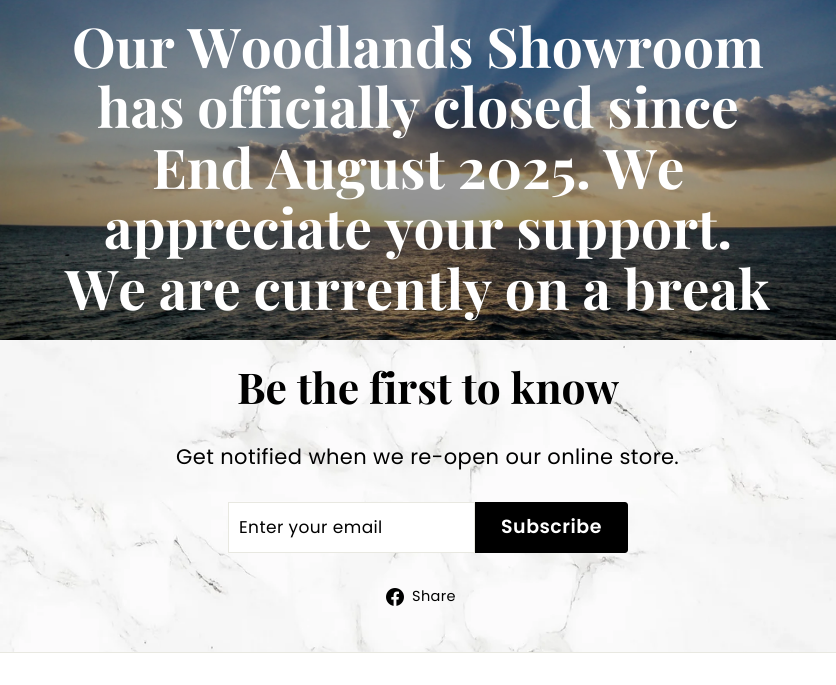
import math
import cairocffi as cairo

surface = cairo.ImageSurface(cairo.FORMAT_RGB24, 836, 685)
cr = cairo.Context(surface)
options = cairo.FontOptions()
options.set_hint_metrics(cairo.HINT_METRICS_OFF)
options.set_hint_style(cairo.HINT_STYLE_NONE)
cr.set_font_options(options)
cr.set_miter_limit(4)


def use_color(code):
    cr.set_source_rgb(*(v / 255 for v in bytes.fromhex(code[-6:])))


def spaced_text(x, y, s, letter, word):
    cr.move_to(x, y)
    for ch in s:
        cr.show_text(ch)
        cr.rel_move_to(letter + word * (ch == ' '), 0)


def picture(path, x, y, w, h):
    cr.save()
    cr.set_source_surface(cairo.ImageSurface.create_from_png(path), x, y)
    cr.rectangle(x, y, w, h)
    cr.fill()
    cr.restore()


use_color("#ffffff")
cr.paint()
picture("img1.png", 0, 0, 836, 340)
cr.select_font_face("Playfair Display", cairo.FONT_SLANT_NORMAL, cairo.FONT_WEIGHT_BOLD)
cr.set_font_size(55)
use_color("#ffffff")
cr.move_to(72, 68)
cr.show_text("Our Woodlands Showroom")
cr.move_to(97, 128)
cr.show_text("has officially closed since")
cr.move_to(152, 189)
cr.show_text("End August 2025. We")
cr.move_to(104, 249)
cr.show_text("appreciate your support.")
cr.move_to(65, 310)
cr.show_text("We are currently on a break")
picture("img2.png", 0, 340, 836, 312)
cr.set_font_size(42.5)
use_color("#000000")
cr.move_to(237, 404)
cr.show_text("Be the first to know")
cr.select_font_face("Poppins")
cr.set_font_size(21)
spaced_text(176, 464, "Get notified when we re-open our online store.", 0.4, 0)
use_color("#ffffff")
cr.rectangle(228.5, 502.5, 246, 50)
cr.fill_preserve()
use_color("#e8e8e1")
cr.set_line_width(1)
cr.stroke()
cr.set_font_size(17)
use_color("#000000")
spaced_text(239, 533, "Enter your email", 0.4, 0)
cr.new_path()
cr.move_to(475, 502)
cr.line_to(625, 502)
cr.curve_to(626.5, 502, 628, 503.5, 628, 505)
cr.line_to(628, 550)
cr.curve_to(628, 551.5, 626.5, 553, 625, 553)
cr.line_to(475, 553)
cr.close_path()
cr.fill()
cr.select_font_face("Poppins SemiBold")
cr.set_font_size(19)
use_color("#ffffff")
spaced_text(501, 533, "Subscribe", 0.5, 0)
picture("img3.png", 386, 588, 18, 18)
cr.select_font_face("Poppins")
cr.set_font_size(14.5)
use_color("#000000")
spaced_text(412, 601, "Share", 0.4, 0)
use_color("#e8e8e1")
cr.rectangle(0, 652, 836, 1)
cr.fill()
surface.write_to_png("result.png")
